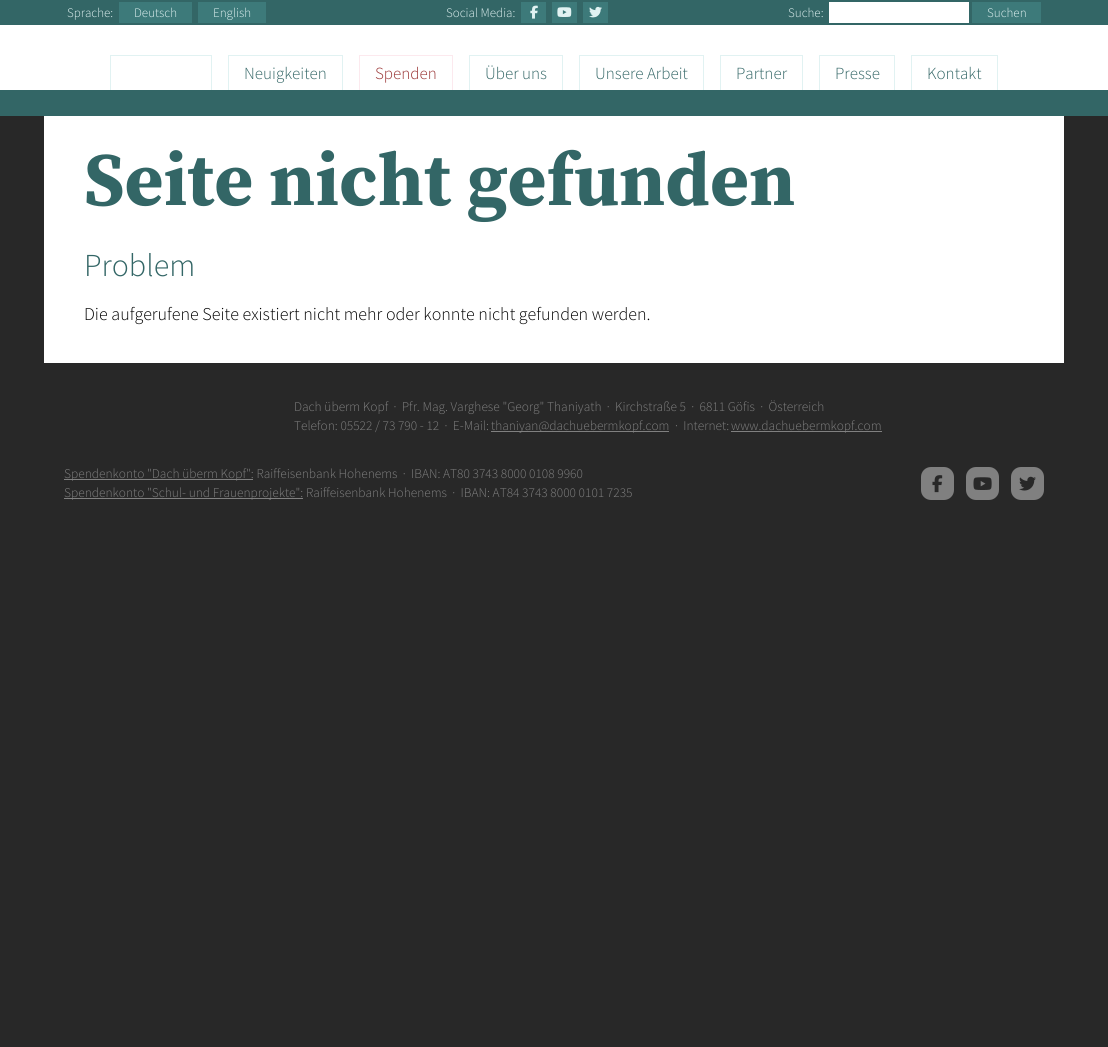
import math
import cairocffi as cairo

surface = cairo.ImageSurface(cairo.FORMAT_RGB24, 1108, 1047)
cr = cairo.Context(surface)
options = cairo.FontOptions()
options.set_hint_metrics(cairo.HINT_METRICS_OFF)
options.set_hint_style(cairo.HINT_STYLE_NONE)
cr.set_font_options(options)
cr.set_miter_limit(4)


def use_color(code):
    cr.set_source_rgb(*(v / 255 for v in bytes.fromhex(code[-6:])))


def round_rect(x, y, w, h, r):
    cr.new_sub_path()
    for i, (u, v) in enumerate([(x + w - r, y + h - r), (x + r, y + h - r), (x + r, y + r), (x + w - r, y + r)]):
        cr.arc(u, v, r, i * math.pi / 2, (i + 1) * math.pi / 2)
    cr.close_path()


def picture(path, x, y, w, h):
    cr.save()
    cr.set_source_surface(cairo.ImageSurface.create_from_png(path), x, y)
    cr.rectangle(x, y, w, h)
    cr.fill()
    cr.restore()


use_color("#282828")
cr.paint()
use_color("#336666")
cr.rectangle(0, 0, 1108, 25)
cr.fill()
cr.select_font_face("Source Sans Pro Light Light")
cr.set_font_size(13)
use_color("#e1f2f2")
cr.move_to(67, 17)
cr.show_text("Sprache:")
use_color("#3d7a7a")
cr.rectangle(119, 2, 73, 21)
cr.fill()
use_color("#e1f2f2")
cr.move_to(134, 17)
cr.show_text("Deutsch")
use_color("#3d7a7a")
cr.rectangle(198, 2, 68, 21)
cr.fill()
use_color("#e1f2f2")
cr.move_to(213, 17)
cr.show_text("English")
cr.move_to(446, 17)
cr.show_text("Social Media:")
use_color("#3d7a7a")
cr.rectangle(521, 2, 25, 21)
cr.fill()
picture("img1.png", 530, 5, 8, 14)
cr.rectangle(552, 2, 25, 21)
cr.fill()
picture("img2.png", 557, 7, 15, 10)
cr.rectangle(583, 2, 25, 21)
cr.fill()
picture("img3.png", 589, 6, 13, 12)
use_color("#e1f2f2")
cr.move_to(788, 17)
cr.show_text("Suche:")
use_color("#ffffff")
cr.rectangle(829, 2, 140, 21)
cr.fill()
use_color("#3d7a7a")
cr.rectangle(972, 2, 69, 21)
cr.fill()
use_color("#e1f2f2")
cr.move_to(987, 17)
cr.show_text("Suchen")
use_color("#ffffff")
cr.rectangle(0, 25, 1108, 65)
cr.fill()
use_color("#e1f2f2")
cr.rectangle(110, 55, 102, 1)
cr.fill()
cr.rectangle(211, 55, 1, 35)
cr.fill()
cr.rectangle(110, 55, 1, 35)
cr.fill()
cr.rectangle(228, 55, 115, 1)
cr.fill()
cr.rectangle(342, 55, 1, 35)
cr.fill()
cr.rectangle(228, 55, 1, 35)
cr.fill()
cr.set_font_size(17)
use_color("#336666")
cr.move_to(244, 79)
cr.show_text("Neuigkeiten")
use_color("#fce9ee")
cr.rectangle(359, 55, 94, 1)
cr.fill()
cr.rectangle(452, 55, 1, 35)
cr.fill()
cr.rectangle(359, 55, 1, 35)
cr.fill()
use_color("#993333")
cr.move_to(375, 79)
cr.show_text("Spenden")
use_color("#e1f2f2")
cr.rectangle(469, 55, 94, 1)
cr.fill()
cr.rectangle(562, 55, 1, 35)
cr.fill()
cr.rectangle(469, 55, 1, 35)
cr.fill()
use_color("#336666")
cr.move_to(485, 79)
cr.show_text("Über uns")
use_color("#e1f2f2")
cr.rectangle(579, 55, 125, 1)
cr.fill()
cr.rectangle(703, 55, 1, 35)
cr.fill()
cr.rectangle(579, 55, 1, 35)
cr.fill()
use_color("#336666")
cr.move_to(595, 79)
cr.show_text("Unsere Arbeit")
use_color("#e1f2f2")
cr.rectangle(720, 55, 83, 1)
cr.fill()
cr.rectangle(802, 55, 1, 35)
cr.fill()
cr.rectangle(720, 55, 1, 35)
cr.fill()
use_color("#336666")
cr.move_to(736, 79)
cr.show_text("Partner")
use_color("#e1f2f2")
cr.rectangle(819, 55, 76, 1)
cr.fill()
cr.rectangle(894, 55, 1, 35)
cr.fill()
cr.rectangle(819, 55, 1, 35)
cr.fill()
use_color("#336666")
cr.move_to(835, 79)
cr.show_text("Presse")
use_color("#e1f2f2")
cr.rectangle(911, 55, 87, 1)
cr.fill()
cr.rectangle(997, 55, 1, 35)
cr.fill()
cr.rectangle(911, 55, 1, 35)
cr.fill()
use_color("#336666")
cr.move_to(927, 79)
cr.show_text("Kontakt")
cr.rectangle(0, 90, 1108, 26)
cr.fill()
use_color("#ffffff")
cr.rectangle(44, 116, 1020, 247)
cr.fill()
cr.select_font_face("Source Serif Pro", cairo.FONT_SLANT_NORMAL, cairo.FONT_WEIGHT_BOLD)
cr.set_font_size(75)
use_color("#336666")
cr.move_to(84, 205)
cr.show_text("Seite nicht gefunden")
cr.select_font_face("Source Sans Pro Light Light")
cr.set_font_size(32)
cr.move_to(84, 276)
cr.show_text("Problem")
cr.set_font_size(18)
use_color("#000000")
cr.move_to(84, 320)
cr.show_text("Die aufgerufene Seite existiert nicht mehr oder konnte nicht gefunden werden.")
cr.set_font_size(13.35)
use_color("#808080")
cr.move_to(294, 411)
cr.show_text("Dach überm Kopf  ·  Pfr. Mag. Varghese \"Georg\" Thaniyath  ·  Kirchstraße 5  ·  6811 Göfis  ·  Österreich")
cr.move_to(294, 430)
cr.show_text("Telefon: 05522 / 73 790 - 12  ·  E-Mail:")
cr.rectangle(491, 431, 178, 1)
cr.fill()
cr.move_to(491, 430)
cr.show_text("thaniyan@dachuebermkopf.com")
cr.move_to(675, 430)
cr.show_text("·  Internet:")
cr.rectangle(731, 431, 151, 1)
cr.fill()
cr.move_to(731, 430)
cr.show_text("www.dachuebermkopf.com")
cr.rectangle(64, 479, 189, 1)
cr.fill()
cr.move_to(64, 478)
cr.show_text("Spendenkonto \"Dach überm Kopf\": Raiffeisenbank Hohenems  ·  IBAN: AT80 3743 8000 0108 9960")
cr.rectangle(64, 498, 239, 1)
cr.fill()
cr.move_to(64, 497)
cr.show_text("Spendenkonto \"Schul- und Frauenprojekte\": Raiffeisenbank Hohenems  ·  IBAN: AT84 3743 8000 0101 7235")
round_rect(921, 467, 33, 33, 10)
cr.fill()
picture("img4.png", 932, 475, 11, 18)
round_rect(966, 467, 33, 33, 10)
cr.fill()
picture("img5.png", 973, 477, 19, 13)
round_rect(1011, 467, 33, 33, 10)
cr.fill()
picture("img6.png", 1019, 476, 17, 15)
surface.write_to_png("result.png")
